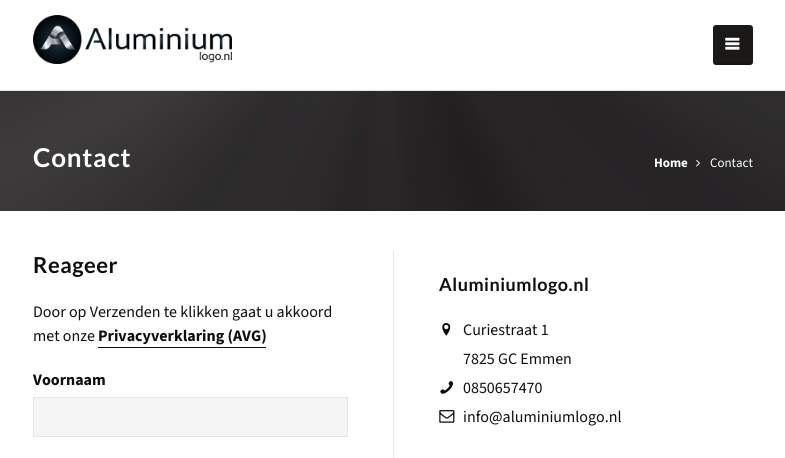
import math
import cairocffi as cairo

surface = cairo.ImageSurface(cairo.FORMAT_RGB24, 785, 458)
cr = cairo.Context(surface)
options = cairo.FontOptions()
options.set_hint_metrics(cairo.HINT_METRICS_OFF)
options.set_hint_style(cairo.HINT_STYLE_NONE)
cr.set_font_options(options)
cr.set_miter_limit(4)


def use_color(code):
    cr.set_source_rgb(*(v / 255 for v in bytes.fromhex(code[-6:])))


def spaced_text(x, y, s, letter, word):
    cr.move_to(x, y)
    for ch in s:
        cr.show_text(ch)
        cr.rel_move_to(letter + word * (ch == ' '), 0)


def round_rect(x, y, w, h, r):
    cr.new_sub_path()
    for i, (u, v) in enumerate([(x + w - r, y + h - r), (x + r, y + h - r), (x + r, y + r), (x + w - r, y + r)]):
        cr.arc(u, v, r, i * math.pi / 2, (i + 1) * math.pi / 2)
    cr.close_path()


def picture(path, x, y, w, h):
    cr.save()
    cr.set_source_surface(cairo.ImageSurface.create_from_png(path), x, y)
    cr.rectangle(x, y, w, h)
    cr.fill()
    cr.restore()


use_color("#ffffff")
cr.paint()
use_color("#e9e5e5")
cr.rectangle(0, 90, 785, 1)
cr.fill()
picture("img1.png", 33, 15, 199, 49)
use_color("#1b1818")
round_rect(713, 25, 40, 40, 3)
cr.fill()
cr.set_source_rgba(0, 0, 0, 0.15)
cr.new_path()
cr.move_to(713, 60)
cr.curve_to(713, 66, 716, 65, 722, 65)
cr.line_to(744, 65)
cr.curve_to(750, 65, 753, 66, 753, 60)
cr.curve_to(753, 62, 752, 63, 750, 63)
cr.line_to(716, 63)
cr.curve_to(714, 63, 713, 62, 713, 60)
cr.close_path()
cr.fill()
picture("img2.png", 725, 37, 15, 13)
picture("img3.png", 0, 91, 785, 120)
cr.select_font_face("Lato", cairo.FONT_SLANT_NORMAL, cairo.FONT_WEIGHT_BOLD)
cr.set_font_size(26)
use_color("#ffffff")
spaced_text(33, 167, "Contact", 0.75, 0)
cr.select_font_face("Source Sans 3 ExtraLight")
cr.set_font_size(13)
cr.move_to(654, 167)
cr.show_text("Home")
picture("img4.png", 696, 159, 4, 8)
cr.select_font_face("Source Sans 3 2 ExtraLight")
cr.move_to(710, 167)
cr.show_text("Contact")
cr.select_font_face("Lato", cairo.FONT_SLANT_NORMAL, cairo.FONT_WEIGHT_BOLD)
cr.set_font_size(22)
use_color("#0e0e0e")
spaced_text(33, 273, "Reageer", 0.5, 0)
cr.select_font_face("Source Sans 3 2 ExtraLight")
cr.set_font_size(16)
cr.move_to(33, 317)
cr.show_text("Door op Verzenden te klikken gaat u akkoord")
cr.move_to(33, 341)
cr.show_text("met onze")
cr.select_font_face("Source Sans 3 ExtraLight")
cr.move_to(98, 341)
cr.show_text("Privacyverklaring (AVG)")
cr.rectangle(98, 347, 168, 1)
cr.fill()
cr.move_to(33, 385)
cr.show_text("Voornaam")
use_color("#f5f5f5")
cr.rectangle(33.5, 397.5, 314, 39)
cr.fill_preserve()
use_color("#e9e5e5")
cr.set_line_width(1)
cr.stroke()
cr.rectangle(393, 251, 1, 207)
cr.fill()
cr.select_font_face("Lato", cairo.FONT_SLANT_NORMAL, cairo.FONT_WEIGHT_BOLD)
cr.set_font_size(18)
use_color("#0e0e0e")
spaced_text(439, 291, "Aluminiumlogo.nl", 0.5, 0)
picture("img5.png", 442, 323, 9, 13)
cr.select_font_face("Source Sans 3 2 ExtraLight")
cr.set_font_size(16)
cr.move_to(463, 335)
cr.show_text("Curiestraat 1")
cr.move_to(463, 364)
cr.show_text("7825 GC Emmen")
picture("img6.png", 440, 381, 13, 13)
cr.move_to(463, 393)
cr.show_text("0850657470")
picture("img7.png", 439, 410, 16, 13)
cr.move_to(463, 422)
cr.show_text("info@aluminiumlogo.nl")
surface.write_to_png("result.png")
